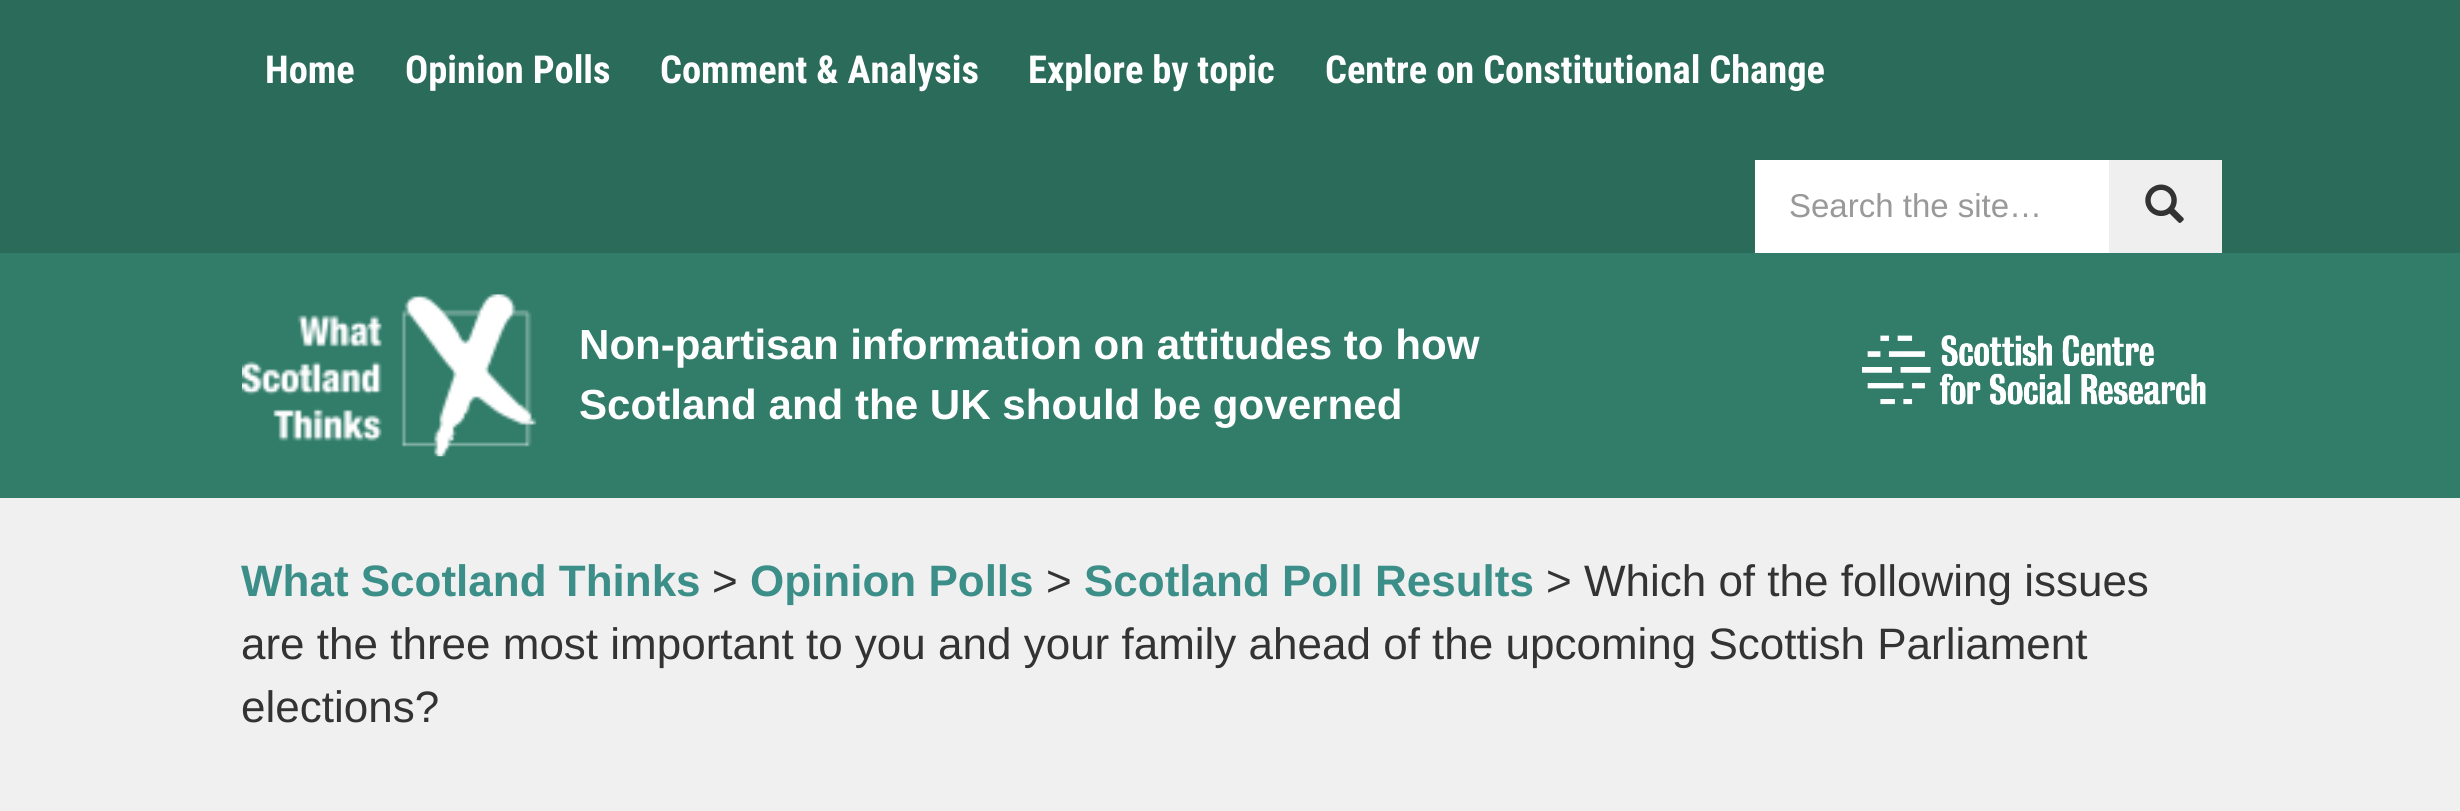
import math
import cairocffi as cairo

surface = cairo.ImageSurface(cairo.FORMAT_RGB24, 2460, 811)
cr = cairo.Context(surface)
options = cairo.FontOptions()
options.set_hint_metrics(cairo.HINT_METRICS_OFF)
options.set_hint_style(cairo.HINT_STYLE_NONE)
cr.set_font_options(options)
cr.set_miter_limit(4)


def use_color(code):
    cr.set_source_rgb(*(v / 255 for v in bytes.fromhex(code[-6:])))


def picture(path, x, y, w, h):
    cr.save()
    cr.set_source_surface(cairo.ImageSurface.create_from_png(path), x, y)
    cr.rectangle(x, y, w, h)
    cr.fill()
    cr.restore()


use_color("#f0f0f0")
cr.paint()
use_color("#2a6b5a")
cr.rectangle(0, 0, 2460, 253)
cr.fill()
cr.select_font_face("Roboto Condensed", cairo.FONT_SLANT_NORMAL, cairo.FONT_WEIGHT_BOLD)
cr.set_font_size(38.5)
use_color("#ffffff")
cr.move_to(265, 83)
cr.show_text("Home")
cr.move_to(405, 83)
cr.show_text("Opinion Polls")
cr.move_to(660, 83)
cr.show_text("Comment & Analysis")
cr.move_to(1028, 83)
cr.show_text("Explore by topic")
cr.move_to(1325, 83)
cr.show_text("Centre on Constitutional Change")
cr.rectangle(1755, 160, 354, 93)
cr.fill()
cr.select_font_face("Liberation Sans")
cr.set_font_size(33)
use_color("#999999")
cr.move_to(1789, 217)
cr.show_text("Search the site…")
use_color("#efefef")
cr.rectangle(2109, 160, 113, 93)
cr.fill()
picture("img1.png", 2145, 184, 39, 39)
use_color("#317d6a")
cr.rectangle(0, 253, 2460, 245)
cr.fill()
picture("img2.png", 242, 294, 295, 163)
cr.select_font_face("Liberation Sans", cairo.FONT_SLANT_NORMAL, cairo.FONT_WEIGHT_BOLD)
cr.set_font_size(42.1)
use_color("#ffffff")
cr.move_to(579, 359)
cr.show_text("Non-partisan information on attitudes to how")
cr.move_to(579, 419)
cr.show_text("Scotland and the UK should be governed")
picture("img3.png", 1862, 335, 344, 70)
cr.set_font_size(44)
use_color("#3c8e88")
cr.move_to(241, 596)
cr.show_text("What Scotland Thinks")
cr.select_font_face("Liberation Sans")
use_color("#333333")
cr.move_to(712, 596)
cr.show_text(">")
cr.select_font_face("Liberation Sans", cairo.FONT_SLANT_NORMAL, cairo.FONT_WEIGHT_BOLD)
use_color("#3c8e88")
cr.move_to(750, 596)
cr.show_text("Opinion Polls")
cr.select_font_face("Liberation Sans")
use_color("#333333")
cr.move_to(1046, 596)
cr.show_text(">")
cr.select_font_face("Liberation Sans", cairo.FONT_SLANT_NORMAL, cairo.FONT_WEIGHT_BOLD)
use_color("#3c8e88")
cr.move_to(1084, 596)
cr.show_text("Scotland Poll Results")
cr.select_font_face("Liberation Sans")
use_color("#333333")
cr.move_to(1546, 596)
cr.show_text("> Which of the following issues")
cr.move_to(241, 659)
cr.show_text("are the three most important to you and your family ahead of the upcoming Scottish Parliament")
cr.move_to(241, 722)
cr.show_text("elections?")
surface.write_to_png("result.png")
